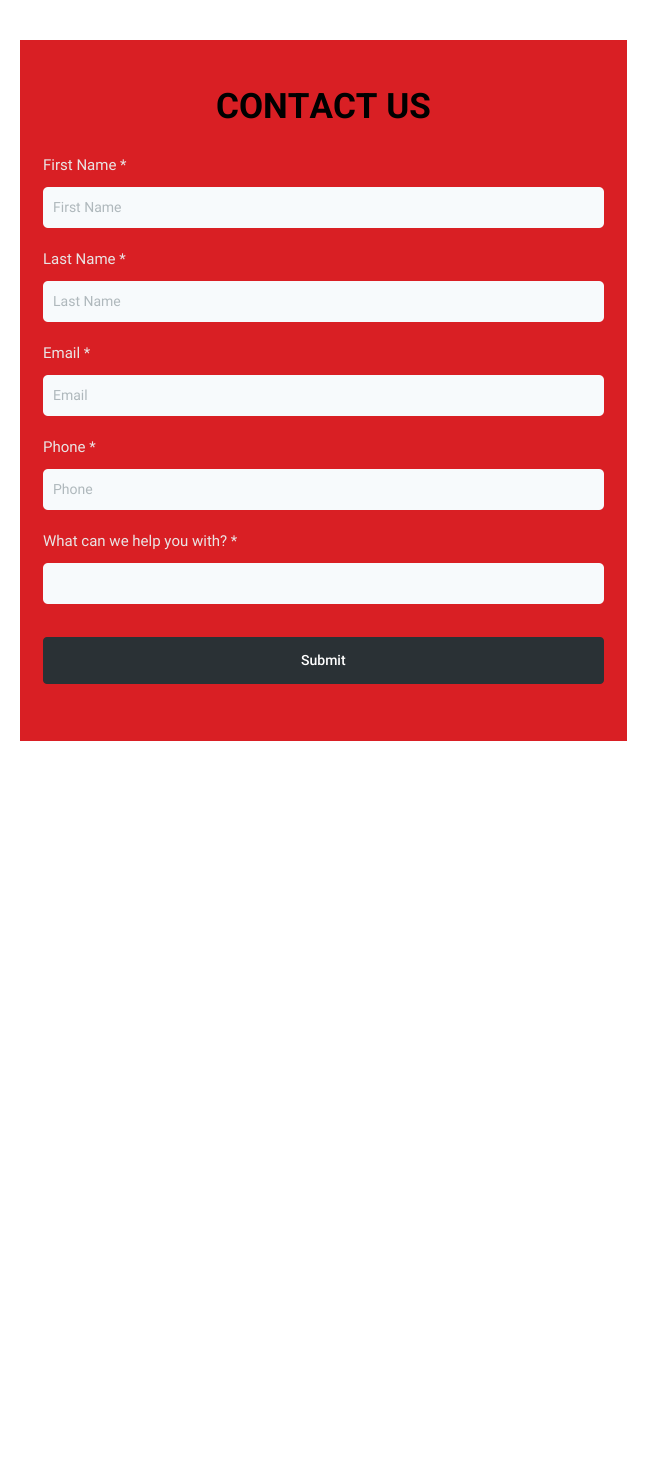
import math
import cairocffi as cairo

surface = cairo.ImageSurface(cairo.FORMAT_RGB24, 647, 1471)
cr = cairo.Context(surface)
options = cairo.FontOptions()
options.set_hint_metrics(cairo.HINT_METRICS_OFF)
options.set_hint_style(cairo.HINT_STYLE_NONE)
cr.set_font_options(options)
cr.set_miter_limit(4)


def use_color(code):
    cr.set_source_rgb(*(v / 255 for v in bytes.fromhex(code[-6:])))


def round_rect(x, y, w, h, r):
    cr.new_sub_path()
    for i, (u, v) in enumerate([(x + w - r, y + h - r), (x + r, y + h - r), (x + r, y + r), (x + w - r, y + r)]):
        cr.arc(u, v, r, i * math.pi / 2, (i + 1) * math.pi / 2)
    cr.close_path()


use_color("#ffffff")
cr.paint()
use_color("#d91f24")
cr.rectangle(20, 40, 607, 701)
cr.fill()
cr.select_font_face("Roboto", cairo.FONT_SLANT_NORMAL, cairo.FONT_WEIGHT_BOLD)
cr.set_font_size(35)
use_color("#000000")
cr.move_to(216, 118)
cr.show_text("CONTACT US")
cr.select_font_face("Roboto")
cr.set_font_size(15)
use_color("#e9e4e4")
cr.move_to(43, 170)
cr.show_text("First Name *")
use_color("#f7fafc")
round_rect(43, 187, 561, 41, 5)
cr.fill()
cr.set_font_size(14)
use_color("#afb8bc")
cr.move_to(53, 212)
cr.show_text("First Name")
cr.set_font_size(15)
use_color("#e9e4e4")
cr.move_to(43, 264)
cr.show_text("Last Name *")
use_color("#f7fafc")
round_rect(43, 281, 561, 41, 5)
cr.fill()
cr.set_font_size(14)
use_color("#afb8bc")
cr.move_to(53, 306)
cr.show_text("Last Name")
cr.set_font_size(15)
use_color("#e9e4e4")
cr.move_to(43, 358)
cr.show_text("Email *")
use_color("#f7fafc")
round_rect(43, 375, 561, 41, 5)
cr.fill()
cr.set_font_size(14)
use_color("#afb8bc")
cr.move_to(53, 400)
cr.show_text("Email")
cr.set_font_size(15)
use_color("#e9e4e4")
cr.move_to(43, 452)
cr.show_text("Phone *")
use_color("#f7fafc")
round_rect(43, 469, 561, 41, 5)
cr.fill()
cr.set_font_size(14)
use_color("#afb8bc")
cr.move_to(53, 494)
cr.show_text("Phone")
cr.set_font_size(15)
use_color("#e9e4e4")
cr.move_to(43, 546)
cr.show_text("What can we help you with? *")
use_color("#f7fafc")
round_rect(43, 563, 561, 41, 5)
cr.fill()
use_color("#2a3135")
round_rect(43, 637, 561, 47, 4)
cr.fill()
cr.select_font_face("Roboto Medium")
cr.set_font_size(14)
use_color("#ffffff")
cr.move_to(301, 665)
cr.show_text("Submit")
surface.write_to_png("result.png")
